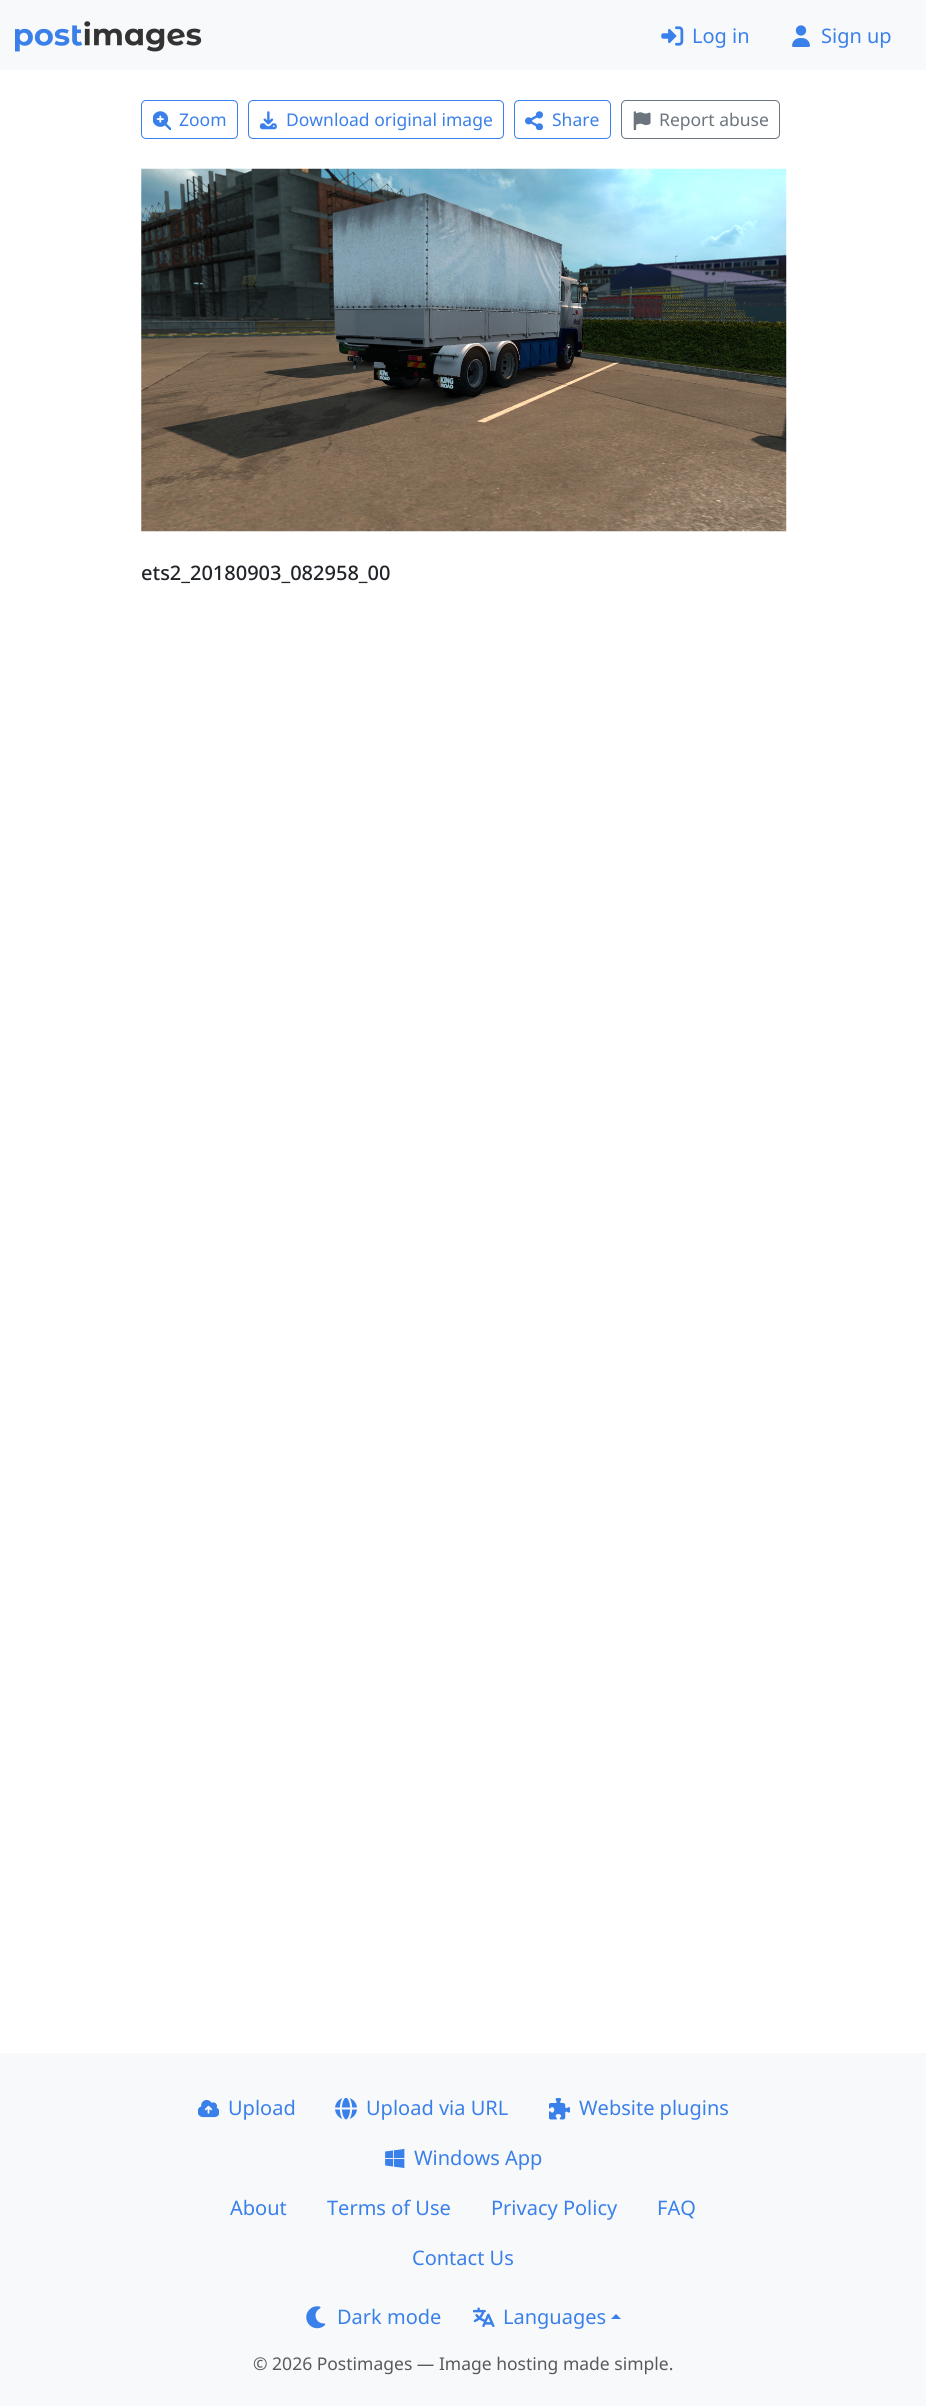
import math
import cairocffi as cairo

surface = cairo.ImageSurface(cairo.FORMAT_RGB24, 926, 2406)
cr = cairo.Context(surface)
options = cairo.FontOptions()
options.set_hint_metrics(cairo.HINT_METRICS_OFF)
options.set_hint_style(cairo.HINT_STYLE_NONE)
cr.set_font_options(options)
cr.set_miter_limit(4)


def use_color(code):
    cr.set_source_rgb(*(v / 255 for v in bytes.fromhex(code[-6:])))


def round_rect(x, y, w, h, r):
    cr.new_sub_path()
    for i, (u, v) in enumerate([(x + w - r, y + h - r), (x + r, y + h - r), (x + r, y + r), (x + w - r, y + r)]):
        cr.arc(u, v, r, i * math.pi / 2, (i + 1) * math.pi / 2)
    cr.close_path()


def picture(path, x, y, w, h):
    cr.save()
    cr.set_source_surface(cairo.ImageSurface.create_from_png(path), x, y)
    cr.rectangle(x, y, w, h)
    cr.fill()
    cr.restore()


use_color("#ffffff")
cr.paint()
use_color("#f8f9fa")
cr.rectangle(0, 0, 926, 70)
cr.fill()
picture("img1.png", 15, 21, 187, 31)
picture("img2.png", 661, 26, 23, 20)
cr.select_font_face("Noto Sans")
cr.set_font_size(20)
use_color("#3a80ea")
cr.move_to(692, 43)
cr.show_text("Log in")
picture("img3.png", 792, 25, 18, 22)
cr.move_to(821, 43)
cr.show_text("Sign up")
round_rect(141.5, 100.5, 96, 38, 4.5)
cr.set_line_width(1)
cr.stroke()
picture("img4.png", 153, 111, 18, 19)
cr.set_font_size(17.5)
cr.move_to(179, 126)
cr.show_text("Zoom")
round_rect(248.5, 100.5, 255, 38, 4.5)
cr.stroke()
picture("img5.png", 259, 111, 18, 19)
cr.move_to(286, 126)
cr.show_text("Download original image")
round_rect(514.5, 100.5, 96, 38, 4.5)
cr.stroke()
picture("img6.png", 525, 111, 18, 19)
cr.move_to(552, 126)
cr.show_text("Share")
round_rect(621.5, 100.5, 158, 38, 4.5)
use_color("#6c757d")
cr.stroke()
picture("img7.png", 633, 111, 18, 19)
cr.move_to(659, 126)
cr.show_text("Report abuse")
picture("img8.png", 141, 168, 646, 364)
cr.select_font_face("Noto Sans Medium")
cr.set_font_size(20)
use_color("#212529")
cr.move_to(141, 580)
cr.show_text("ets2_20180903_082958_00")
use_color("#f8f9fa")
cr.rectangle(0, 2053, 926, 353)
cr.fill()
picture("img9.png", 198, 2099, 21, 19)
cr.select_font_face("Noto Sans")
use_color("#3a80ea")
cr.move_to(228, 2115)
cr.show_text("Upload")
picture("img10.png", 335, 2098, 22, 22)
cr.move_to(366, 2115)
cr.show_text("Upload via URL")
picture("img11.png", 549, 2098, 21, 22)
cr.move_to(579, 2115)
cr.show_text("Website plugins")
picture("img12.png", 385, 2148, 20, 21)
cr.move_to(414, 2165)
cr.show_text("Windows App")
cr.move_to(230, 2215)
cr.show_text("About")
cr.move_to(327, 2215)
cr.show_text("Terms of Use")
cr.move_to(491, 2215)
cr.show_text("Privacy Policy")
cr.move_to(657, 2215)
cr.show_text("FAQ")
cr.move_to(412, 2265)
cr.show_text("Contact Us")
picture("img13.png", 306, 2306, 20, 23)
cr.move_to(337, 2324)
cr.show_text("Dark mode")
picture("img14.png", 473, 2307, 22, 20)
cr.move_to(503, 2324)
cr.show_text("Languages")
cr.new_path()
cr.move_to(621, 2319)
cr.line_to(611, 2319)
cr.line_to(616, 2314)
cr.close_path()
cr.fill()
cr.set_font_size(17.5)
use_color("#575a5d")
cr.move_to(253, 2370)
cr.show_text("© 2026 Postimages — Image hosting made simple.")
surface.write_to_png("result.png")
